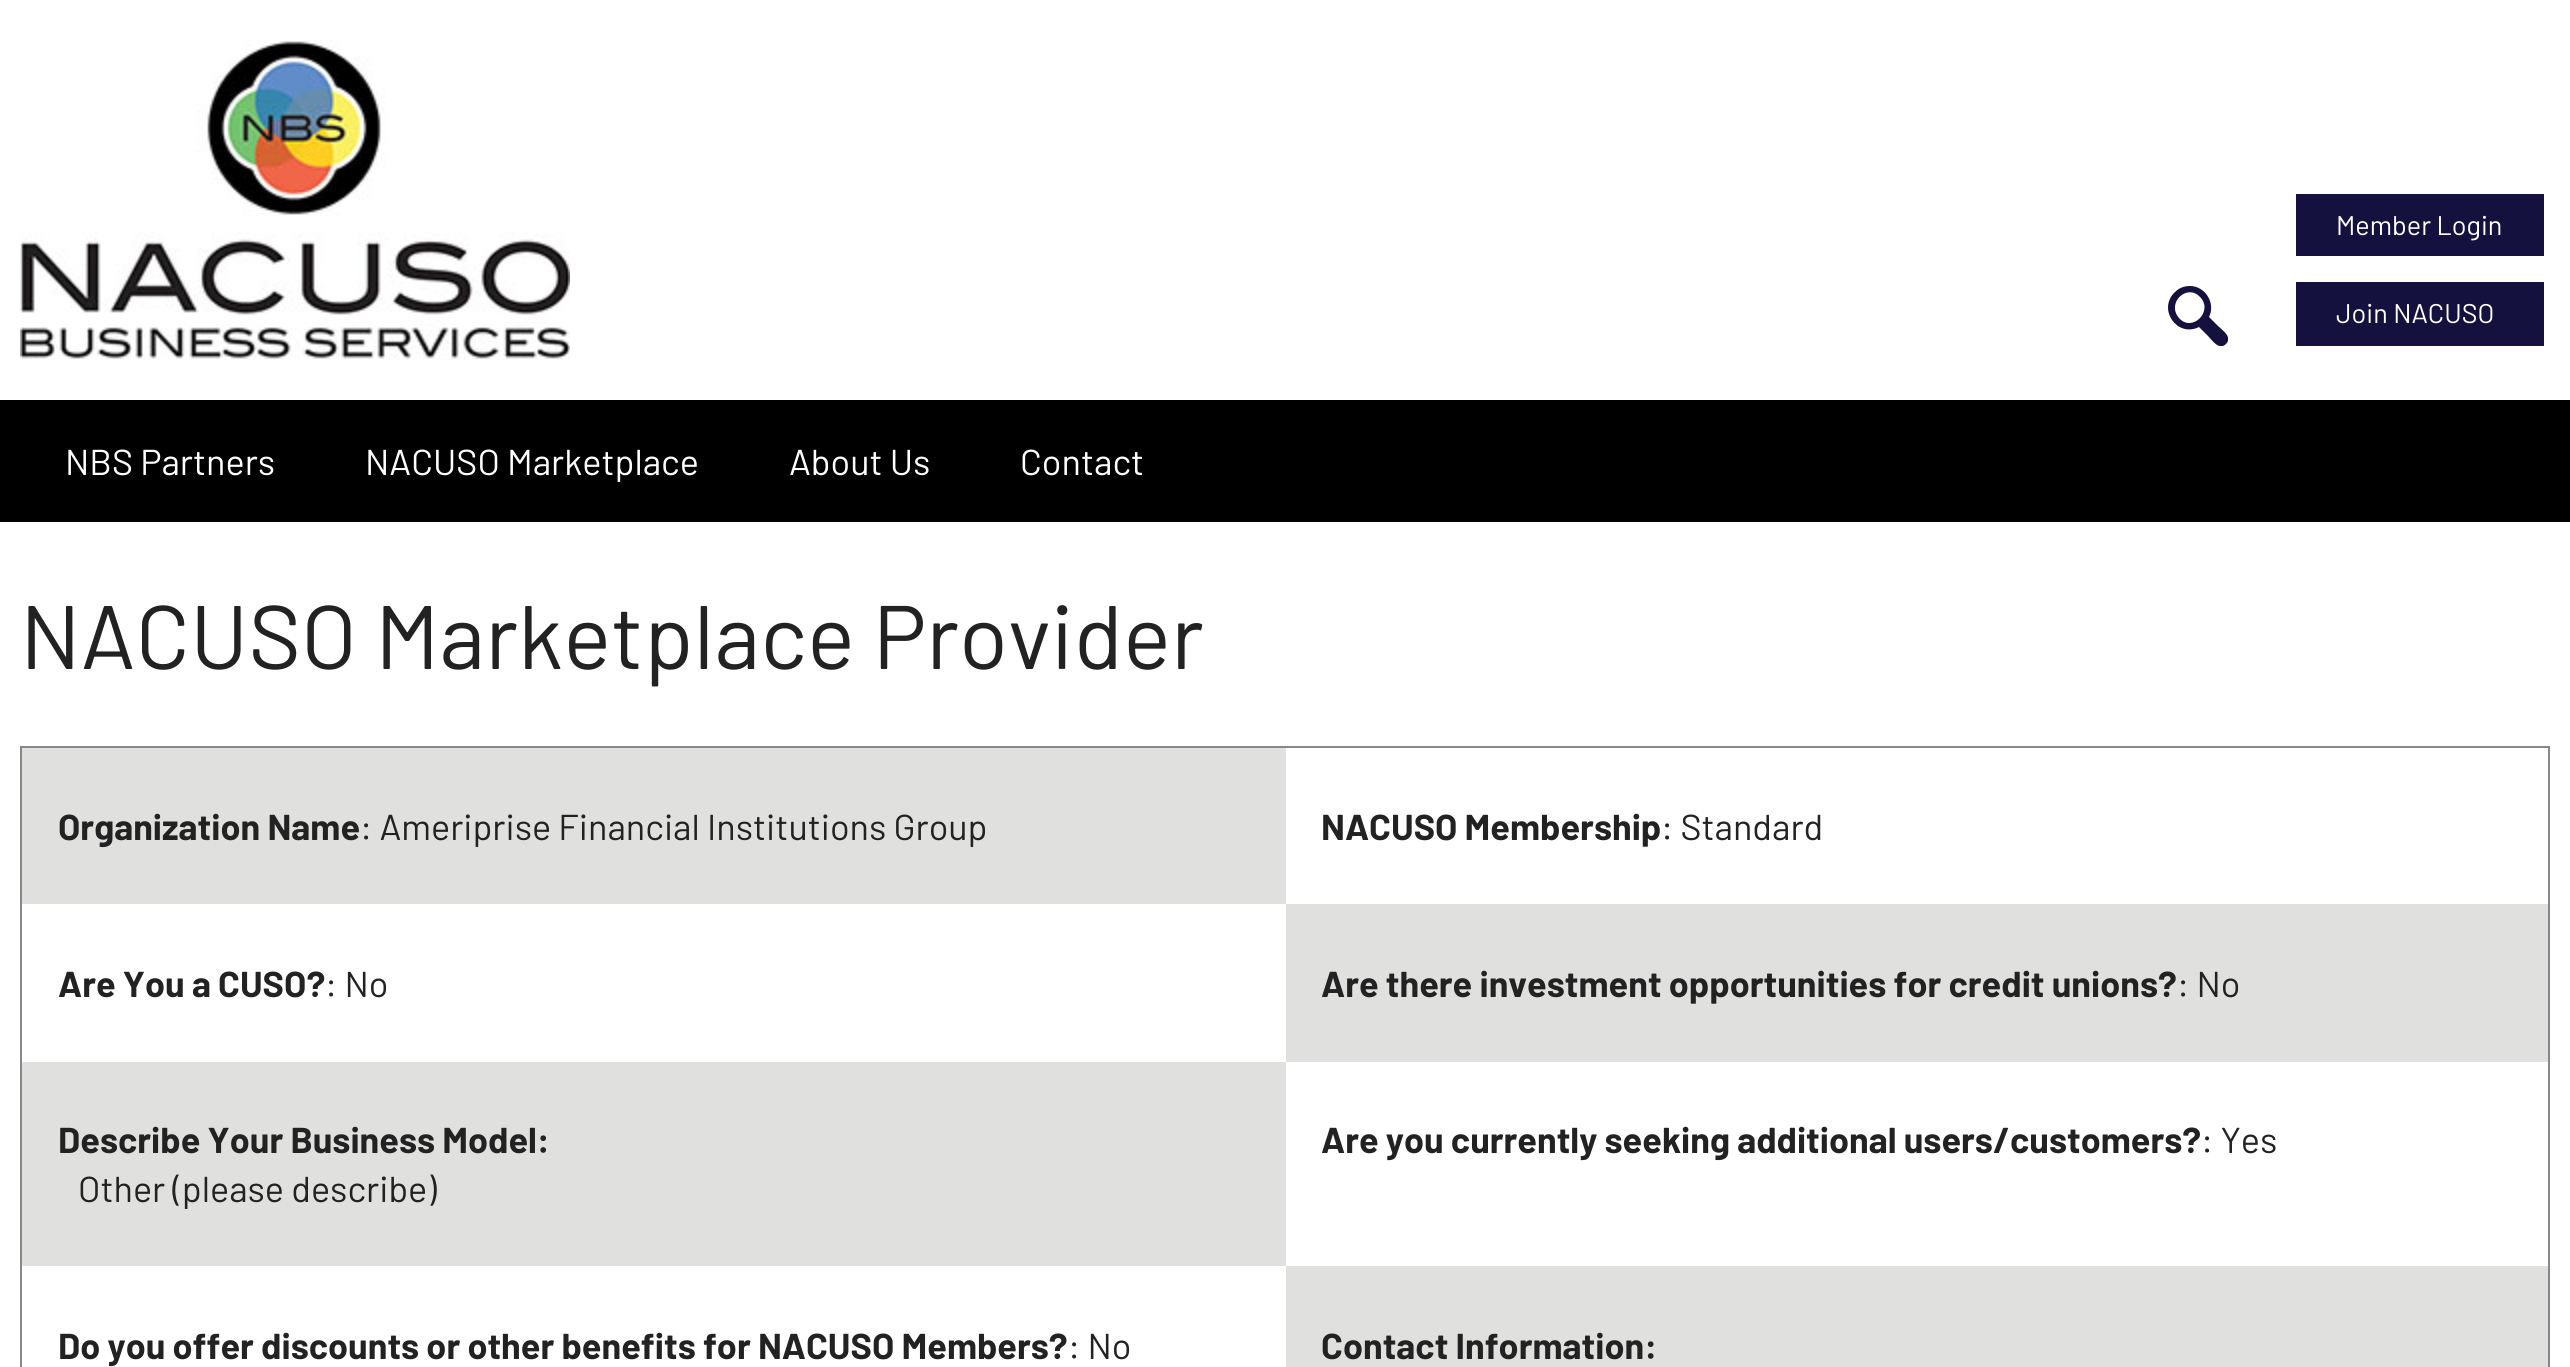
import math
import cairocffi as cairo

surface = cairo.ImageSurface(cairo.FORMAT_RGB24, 2570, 1367)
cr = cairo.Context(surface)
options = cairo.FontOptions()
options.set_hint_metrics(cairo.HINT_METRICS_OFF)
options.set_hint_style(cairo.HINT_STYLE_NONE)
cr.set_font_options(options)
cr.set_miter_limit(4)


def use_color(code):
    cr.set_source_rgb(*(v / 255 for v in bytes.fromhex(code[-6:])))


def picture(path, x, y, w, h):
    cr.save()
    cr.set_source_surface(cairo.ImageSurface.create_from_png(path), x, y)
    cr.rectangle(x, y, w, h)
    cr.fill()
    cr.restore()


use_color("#ffffff")
cr.paint()
picture("img1.png", 20, 40, 550, 320)
cr.save()
cr.rectangle(2168, 286, 60, 60)
cr.clip()
use_color("#14113f")
cr.set_fill_rule(cairo.FILL_RULE_EVEN_ODD)
cr.new_path()
cr.move_to(2190, 286)
cr.curve_to(2205, 286, 2216, 303, 2209, 317)
cr.line_to(2218, 326)
cr.curve_to(2222, 330, 2233, 337, 2226, 344)
cr.curve_to(2219, 351, 2212, 340, 2208, 336)
cr.line_to(2199, 327)
cr.curve_to(2177, 338, 2157, 309, 2175, 292)
cr.curve_to(2179, 288, 2184, 286, 2190, 286)
cr.close_path()
cr.move_to(2200, 297)
cr.curve_to(2187, 283, 2166, 303, 2179, 318)
cr.curve_to(2192, 333, 2214, 311, 2200, 297)
cr.close_path()
cr.fill()
cr.restore()
use_color("#14113f")
cr.rectangle(2296, 194, 248, 62)
cr.fill()
cr.select_font_face("Barlow")
cr.set_font_size(27)
use_color("#ffffff")
cr.move_to(2336, 235)
cr.show_text("Member Login")
use_color("#14113f")
cr.rectangle(2296, 282, 248, 64)
cr.fill()
use_color("#ffffff")
cr.move_to(2336, 323)
cr.show_text("Join NACUSO")
use_color("#000000")
cr.rectangle(0, 400, 2570, 122)
cr.fill()
cr.set_font_size(36)
use_color("#ffffff")
cr.move_to(65, 475)
cr.show_text("NBS Partners")
cr.move_to(365, 475)
cr.show_text("NACUSO Marketplace")
cr.move_to(789, 475)
cr.show_text("About Us")
cr.move_to(1020, 475)
cr.show_text("Contact")
cr.set_font_size(90)
use_color("#222222")
cr.move_to(20, 669)
cr.show_text("NACUSO Marketplace Provider")
cr.rectangle(21, 747, 2528, 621)
use_color("#878787")
cr.stroke()
use_color("#e0e0df")
cr.rectangle(22, 748, 1264, 156)
cr.fill()
cr.select_font_face("Barlow", cairo.FONT_SLANT_NORMAL, cairo.FONT_WEIGHT_BOLD)
cr.set_font_size(36)
use_color("#222222")
cr.move_to(58, 840)
cr.show_text("Organization Name")
cr.select_font_face("Barlow")
cr.move_to(360, 840)
cr.show_text(": Ameriprise Financial Institutions Group")
cr.select_font_face("Barlow", cairo.FONT_SLANT_NORMAL, cairo.FONT_WEIGHT_BOLD)
cr.move_to(1321, 840)
cr.show_text("NACUSO Membership")
cr.select_font_face("Barlow")
cr.move_to(1661, 840)
cr.show_text(": Standard")
cr.select_font_face("Barlow", cairo.FONT_SLANT_NORMAL, cairo.FONT_WEIGHT_BOLD)
cr.move_to(58, 997)
cr.show_text("Are You a CUSO?")
cr.select_font_face("Barlow")
cr.move_to(325, 997)
cr.show_text(": No")
use_color("#e0e0df")
cr.rectangle(1286, 904, 1262, 158)
cr.fill()
cr.select_font_face("Barlow", cairo.FONT_SLANT_NORMAL, cairo.FONT_WEIGHT_BOLD)
use_color("#222222")
cr.move_to(1321, 997)
cr.show_text("Are there investment opportunities for credit unions?")
cr.select_font_face("Barlow")
cr.move_to(2177, 997)
cr.show_text(": No")
use_color("#e0e0df")
cr.rectangle(22, 1062, 1264, 204)
cr.fill()
cr.select_font_face("Barlow", cairo.FONT_SLANT_NORMAL, cairo.FONT_WEIGHT_BOLD)
use_color("#222222")
cr.move_to(58, 1153)
cr.show_text("Describe Your Business Model:")
cr.select_font_face("Barlow")
cr.move_to(78, 1202)
cr.show_text("Other (please describe)")
cr.select_font_face("Barlow", cairo.FONT_SLANT_NORMAL, cairo.FONT_WEIGHT_BOLD)
cr.move_to(1321, 1153)
cr.show_text("Are you currently seeking additional users/customers?")
cr.select_font_face("Barlow")
cr.move_to(2201, 1153)
cr.show_text(": Yes")
cr.select_font_face("Barlow", cairo.FONT_SLANT_NORMAL, cairo.FONT_WEIGHT_BOLD)
cr.move_to(58, 1359)
cr.show_text("Do you offer discounts or other benefits for NACUSO Members?")
cr.select_font_face("Barlow")
cr.move_to(1068, 1359)
cr.show_text(": No")
use_color("#e0e0df")
cr.rectangle(1286, 1266, 1262, 101)
cr.fill()
cr.select_font_face("Barlow", cairo.FONT_SLANT_NORMAL, cairo.FONT_WEIGHT_BOLD)
use_color("#222222")
cr.move_to(1321, 1359)
cr.show_text("Contact Information:")
surface.write_to_png("result.png")
